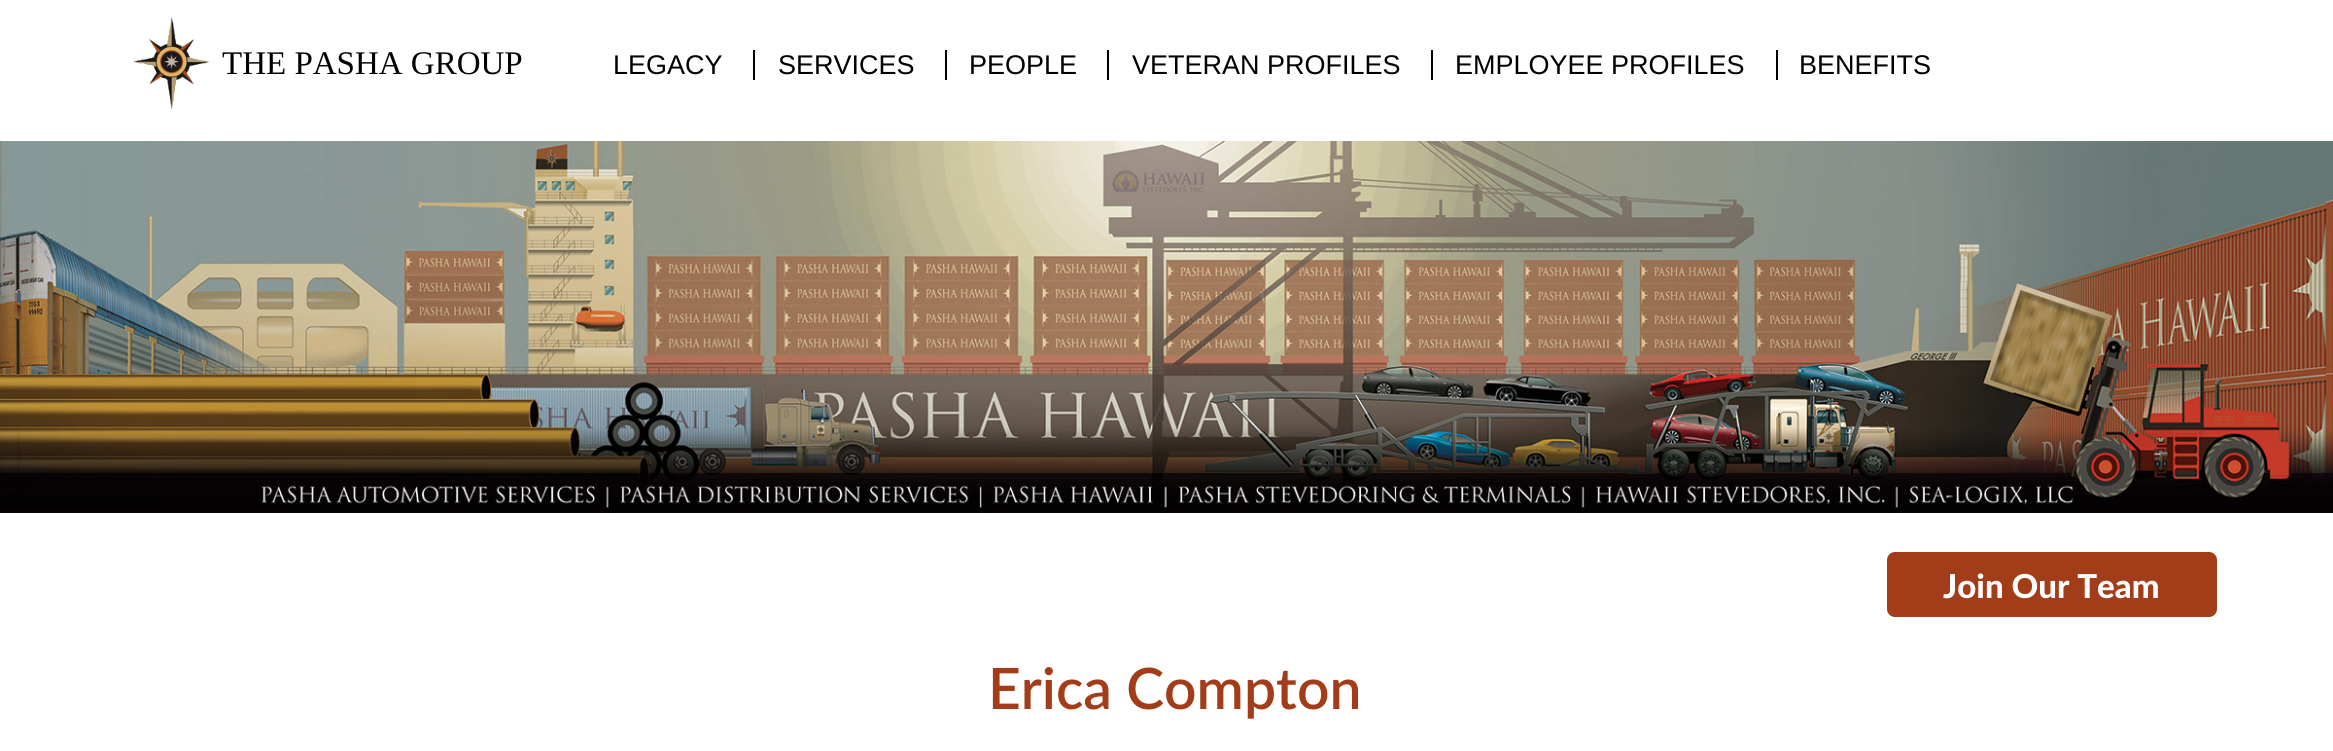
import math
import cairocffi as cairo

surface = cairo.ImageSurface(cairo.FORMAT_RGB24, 2333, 751)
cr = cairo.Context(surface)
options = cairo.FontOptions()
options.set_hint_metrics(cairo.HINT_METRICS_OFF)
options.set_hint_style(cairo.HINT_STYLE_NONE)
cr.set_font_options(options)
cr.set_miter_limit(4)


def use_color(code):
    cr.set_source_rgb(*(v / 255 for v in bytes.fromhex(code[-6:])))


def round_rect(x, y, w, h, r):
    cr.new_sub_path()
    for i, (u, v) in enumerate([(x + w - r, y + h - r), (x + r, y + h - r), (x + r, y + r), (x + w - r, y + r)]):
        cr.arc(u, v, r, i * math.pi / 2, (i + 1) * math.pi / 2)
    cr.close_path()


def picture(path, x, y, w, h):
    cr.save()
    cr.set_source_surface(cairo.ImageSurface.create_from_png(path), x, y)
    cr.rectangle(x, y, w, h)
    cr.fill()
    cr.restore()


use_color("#ffffff")
cr.paint()
picture("img1.png", 133, 16, 76, 93)
cr.select_font_face("Liberation Serif")
cr.set_font_size(33)
use_color("#000000")
cr.move_to(222, 74)
cr.show_text("THE PASHA GROUP")
cr.select_font_face("Liberation Sans")
cr.set_font_size(27)
cr.move_to(613, 74)
cr.show_text("LEGACY")
cr.move_to(778, 74)
cr.show_text("SERVICES")
cr.rectangle(753, 50, 2, 30)
cr.fill()
cr.move_to(969, 74)
cr.show_text("PEOPLE")
cr.rectangle(945, 50, 2, 30)
cr.fill()
cr.move_to(1132, 74)
cr.show_text("VETERAN PROFILES")
cr.rectangle(1107, 50, 2, 30)
cr.fill()
cr.move_to(1455, 74)
cr.show_text("EMPLOYEE PROFILES")
cr.rectangle(1431, 50, 2, 30)
cr.fill()
cr.move_to(1799, 74)
cr.show_text("BENEFITS")
cr.rectangle(1776, 50, 2, 30)
cr.fill()
picture("img2.png", 0, 141, 2333, 372)
use_color("#a33c19")
round_rect(1887, 552, 330, 65, 8)
cr.fill()
cr.select_font_face("Lato Black")
cr.set_font_size(33)
use_color("#ffffff")
cr.move_to(1943, 598)
cr.show_text("Join Our Team")
cr.select_font_face("Lato SemiBold")
cr.set_font_size(57)
use_color("#a33c19")
cr.move_to(988, 709)
cr.show_text("Erica Compton")
surface.write_to_png("result.png")
